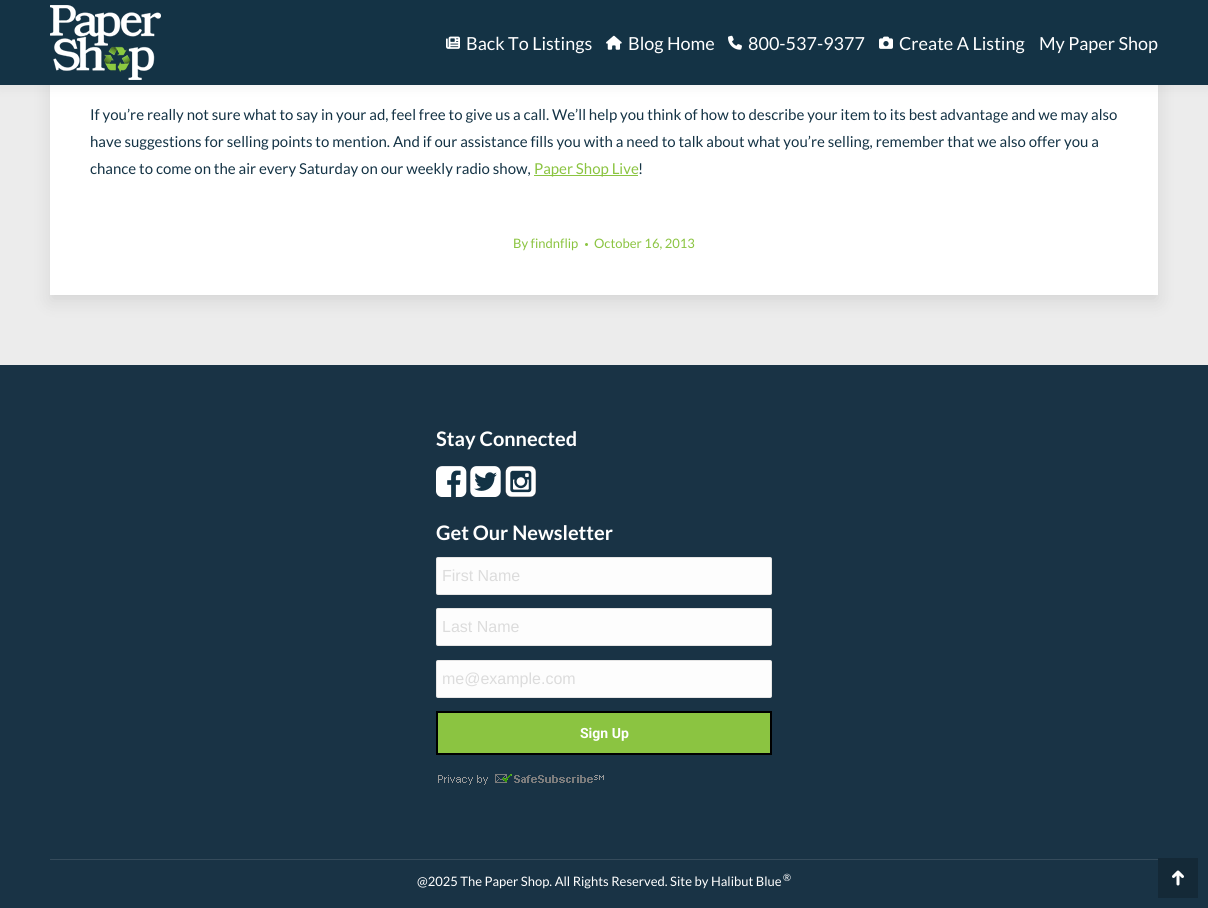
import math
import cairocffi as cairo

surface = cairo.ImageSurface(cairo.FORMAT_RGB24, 1208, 908)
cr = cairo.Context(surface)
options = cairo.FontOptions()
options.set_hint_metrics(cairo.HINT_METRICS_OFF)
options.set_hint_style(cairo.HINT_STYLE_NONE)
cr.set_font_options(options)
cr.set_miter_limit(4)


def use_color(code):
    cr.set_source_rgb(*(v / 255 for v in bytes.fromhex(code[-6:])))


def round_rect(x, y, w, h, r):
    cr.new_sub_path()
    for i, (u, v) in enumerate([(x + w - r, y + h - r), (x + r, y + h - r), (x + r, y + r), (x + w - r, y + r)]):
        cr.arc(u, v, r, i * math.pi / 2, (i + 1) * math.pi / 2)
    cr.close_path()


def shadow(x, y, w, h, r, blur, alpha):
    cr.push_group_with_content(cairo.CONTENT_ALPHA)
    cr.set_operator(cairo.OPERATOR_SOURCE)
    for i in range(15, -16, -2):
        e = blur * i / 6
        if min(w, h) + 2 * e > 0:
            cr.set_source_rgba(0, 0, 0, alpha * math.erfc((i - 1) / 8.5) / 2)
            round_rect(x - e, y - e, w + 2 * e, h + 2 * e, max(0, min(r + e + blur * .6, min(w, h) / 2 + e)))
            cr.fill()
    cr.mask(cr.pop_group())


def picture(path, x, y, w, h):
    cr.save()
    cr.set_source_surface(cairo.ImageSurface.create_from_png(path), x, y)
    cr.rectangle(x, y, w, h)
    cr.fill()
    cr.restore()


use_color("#ececec")
cr.paint()
use_color("#000000")
shadow(50, -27, 1108, 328, 0, 9, 0.1)
use_color("#ffffff")
cr.rectangle(50, 85, 1108, 210)
cr.fill()
use_color("#000000")
shadow(-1, -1, 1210, 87, 0, 7.5, 0.07)
use_color("#143345")
cr.rectangle(0, 0, 1208, 85)
cr.fill()
picture("img1.png", 50, 5, 111, 75)
picture("img2.png", 446, 36, 14, 13)
cr.select_font_face("Lato")
cr.set_font_size(18)
use_color("#ffffff")
cr.move_to(466, 50)
cr.show_text("Back To Listings")
picture("img3.png", 606, 35, 16, 15)
cr.move_to(628, 50)
cr.show_text("Blog Home")
picture("img4.png", 728, 35, 14, 15)
cr.move_to(748, 50)
cr.show_text("800-537-9377")
picture("img5.png", 879, 36, 14, 13)
cr.move_to(899, 50)
cr.show_text("Create A Listing")
cr.move_to(1039, 50)
cr.show_text("My Paper Shop")
cr.set_font_size(15)
use_color("#143345")
cr.move_to(90, 120)
cr.show_text("If you’re really not sure what to say in your ad, feel free to give us a call. We’ll help you think of how to describe your item to its best advantage and we may also")
cr.move_to(90, 147)
cr.show_text("have suggestions for selling points to mention. And if our assistance fills you with a need to talk about what you’re selling, remember that we also offer you a")
cr.move_to(90, 174)
cr.show_text("chance to come on the air every Saturday on our weekly radio show,")
use_color("#8bc441")
cr.rectangle(534, 175, 104, 1)
cr.fill()
cr.move_to(534, 174)
cr.show_text("Paper Shop Live")
use_color("#143345")
cr.move_to(638, 174)
cr.show_text("!")
cr.set_font_size(13)
use_color("#8bc441")
cr.move_to(513, 248)
cr.show_text("By findnflip")
cr.new_path()
cr.arc(586.5, 244.5, 1.5, 0, 2 * math.pi)
cr.fill()
cr.move_to(594, 248)
cr.show_text("October 16, 2013")
use_color("#193345")
cr.rectangle(0, 365, 1208, 543)
cr.fill()
cr.select_font_face("Lato", cairo.FONT_SLANT_NORMAL, cairo.FONT_WEIGHT_BOLD)
cr.set_font_size(20)
use_color("#ffffff")
cr.move_to(436, 446)
cr.show_text("Stay Connected")
picture("img6.png", 436, 466, 31, 31)
picture("img7.png", 470, 466, 31, 31)
picture("img8.png", 505, 466, 31, 31)
cr.move_to(436, 540)
cr.show_text("Get Our Newsletter")
use_color("#fdfdfd")
round_rect(436, 557, 336, 38, 2)
cr.fill()
round_rect(436.5, 557.5, 335, 37, 1.5)
cr.set_source_rgba(0.2, 0.2, 0.2, 0.12)
cr.set_line_width(1)
cr.stroke()
cr.select_font_face("Liberation Sans")
cr.set_font_size(16)
use_color("#dcdcdc")
cr.move_to(442, 581)
cr.show_text("First Name")
use_color("#fdfdfd")
round_rect(436, 608, 336, 38, 2)
cr.fill()
round_rect(436.5, 608.5, 335, 37, 1.5)
cr.set_source_rgba(0.2, 0.2, 0.2, 0.12)
cr.stroke()
use_color("#dcdcdc")
cr.move_to(442, 632)
cr.show_text("Last Name")
use_color("#fdfdfd")
round_rect(436, 660, 336, 38, 2)
cr.fill()
round_rect(436.5, 660.5, 335, 37, 1.5)
cr.set_source_rgba(0.2, 0.2, 0.2, 0.12)
cr.stroke()
use_color("#dcdcdc")
cr.move_to(442, 684)
cr.show_text("me@example.com")
use_color("#8bc441")
cr.rectangle(437, 712, 334, 42)
cr.fill_preserve()
use_color("#000000")
cr.set_line_width(2)
cr.stroke()
cr.select_font_face("Roboto", cairo.FONT_SLANT_NORMAL, cairo.FONT_WEIGHT_BOLD)
cr.set_font_size(14)
use_color("#ffffff")
cr.move_to(580, 738)
cr.show_text("Sign Up")
picture("img9.png", 438, 774, 166, 11)
use_color("#354b5b")
cr.rectangle(50, 859, 1108, 1)
cr.fill()
cr.select_font_face("Lato")
cr.set_font_size(13)
use_color("#ffffff")
cr.move_to(417, 886)
cr.show_text("@2025 The Paper Shop. All Rights Reserved. Site by Halibut Blue")
cr.set_font_size(10)
cr.move_to(783, 881)
cr.show_text("®")
use_color("#142937")
cr.rectangle(1158, 858, 40, 40)
cr.fill()
picture("img10.png", 1172, 870, 12, 16)
surface.write_to_png("result.png")
